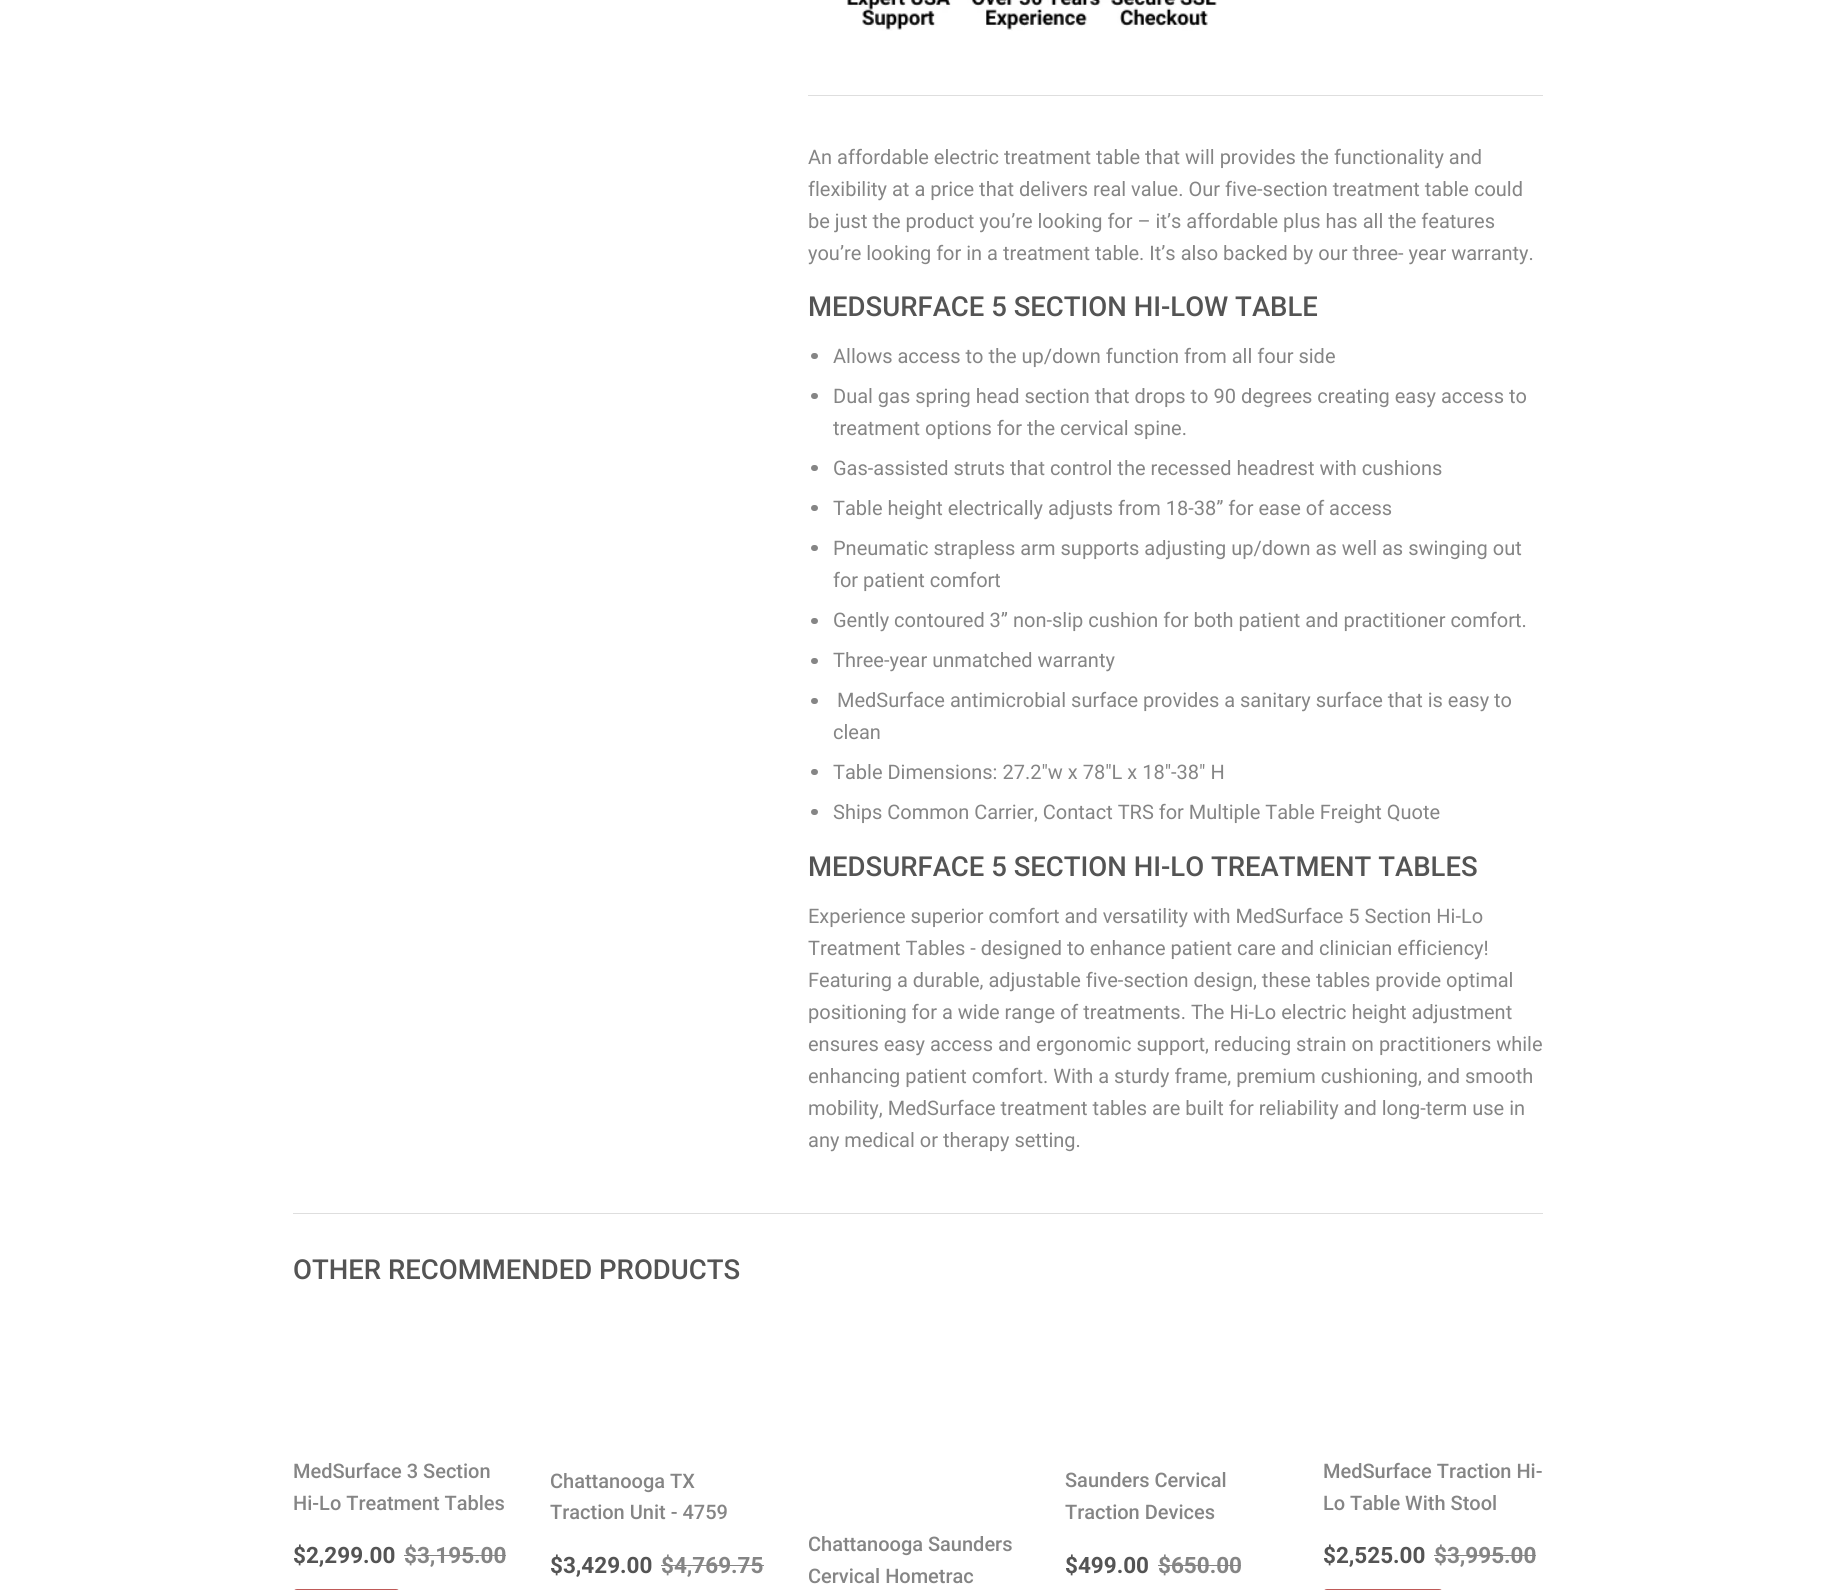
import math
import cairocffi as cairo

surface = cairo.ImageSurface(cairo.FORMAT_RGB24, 1835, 1590)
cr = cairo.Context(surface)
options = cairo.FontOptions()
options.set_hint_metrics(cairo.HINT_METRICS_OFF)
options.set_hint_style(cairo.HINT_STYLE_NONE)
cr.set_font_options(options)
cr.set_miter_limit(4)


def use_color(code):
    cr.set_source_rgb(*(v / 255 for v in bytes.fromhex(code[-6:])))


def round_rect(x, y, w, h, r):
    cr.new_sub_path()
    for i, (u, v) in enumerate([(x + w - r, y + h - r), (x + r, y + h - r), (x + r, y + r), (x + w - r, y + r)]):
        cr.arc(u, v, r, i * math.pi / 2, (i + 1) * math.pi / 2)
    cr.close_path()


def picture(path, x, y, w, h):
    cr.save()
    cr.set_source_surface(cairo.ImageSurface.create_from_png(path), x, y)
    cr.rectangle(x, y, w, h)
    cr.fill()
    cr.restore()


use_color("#ffffff")
cr.paint()
picture("img1.png", 847, 0, 370, 31)
use_color("#dedede")
cr.rectangle(808, 95, 735, 1)
cr.fill()
cr.select_font_face("Roboto")
cr.set_font_size(20)
use_color("#858585")
cr.move_to(808, 164)
cr.show_text("An affordable electric treatment table that will provides the functionality and")
cr.move_to(808, 196)
cr.show_text("flexibility at a price that delivers real value. Our five-section treatment table could")
cr.move_to(808, 228)
cr.show_text("be just the product you’re looking for – it’s affordable plus has all the features")
cr.move_to(808, 260)
cr.show_text("you’re looking for in a treatment table. It’s also backed by our three- year warranty.")
cr.select_font_face("Roboto Medium")
cr.set_font_size(27.5)
use_color("#545454")
cr.move_to(808, 316)
cr.show_text("MEDSURFACE 5 SECTION HI-LOW TABLE")
use_color("#858585")
round_rect(811, 353, 7, 6, 3)
cr.fill()
cr.select_font_face("Roboto")
cr.set_font_size(20)
cr.move_to(833, 363)
cr.show_text("Allows access to the up/down function from all four side")
round_rect(811, 393, 7, 6, 3)
cr.fill()
cr.move_to(833, 403)
cr.show_text("Dual gas spring head section that drops to 90 degrees creating easy access to")
cr.move_to(833, 435)
cr.show_text("treatment options for the cervical spine.")
round_rect(811, 465, 7, 6, 3)
cr.fill()
cr.move_to(833, 475)
cr.show_text("Gas-assisted struts that control the recessed headrest with cushions")
round_rect(811, 505, 7, 6, 3)
cr.fill()
cr.move_to(833, 515)
cr.show_text("Table height electrically adjusts from 18-38” for ease of access")
round_rect(811, 545, 7, 6, 3)
cr.fill()
cr.move_to(833, 555)
cr.show_text("Pneumatic strapless arm supports adjusting up/down as well as swinging out")
cr.move_to(833, 587)
cr.show_text("for patient comfort")
round_rect(811, 618, 7, 6, 3)
cr.fill()
cr.move_to(833, 627)
cr.show_text("Gently contoured 3” non-slip cushion for both patient and practitioner comfort.")
round_rect(811, 658, 7, 6, 3)
cr.fill()
cr.move_to(833, 667)
cr.show_text("Three-year unmatched warranty")
round_rect(811, 698, 7, 6, 3)
cr.fill()
cr.move_to(837, 707)
cr.show_text("MedSurface antimicrobial surface provides a sanitary surface that is easy to")
cr.move_to(833, 739)
cr.show_text("clean")
round_rect(811, 769, 7, 6, 3)
cr.fill()
cr.move_to(833, 779)
cr.show_text("Table Dimensions: 27.2\"w x 78\"L x 18\"-38\" H")
round_rect(811, 809, 7, 6, 3)
cr.fill()
cr.move_to(833, 819)
cr.show_text("Ships Common Carrier, Contact TRS for Multiple Table Freight Quote")
cr.select_font_face("Roboto Medium")
cr.set_font_size(27.5)
use_color("#545454")
cr.move_to(808, 876)
cr.show_text("MEDSURFACE 5 SECTION HI-LO TREATMENT TABLES")
cr.select_font_face("Roboto")
cr.set_font_size(20)
use_color("#858585")
cr.move_to(808, 923)
cr.show_text("Experience superior comfort and versatility with MedSurface 5 Section Hi-Lo")
cr.move_to(808, 955)
cr.show_text("Treatment Tables - designed to enhance patient care and clinician efficiency!")
cr.move_to(808, 987)
cr.show_text("Featuring a durable, adjustable five-section design, these tables provide optimal")
cr.move_to(808, 1019)
cr.show_text("positioning for a wide range of treatments. The Hi-Lo electric height adjustment")
cr.move_to(808, 1051)
cr.show_text("ensures easy access and ergonomic support, reducing strain on practitioners while")
cr.move_to(808, 1083)
cr.show_text("enhancing patient comfort. With a sturdy frame, premium cushioning, and smooth")
cr.move_to(808, 1115)
cr.show_text("mobility, MedSurface treatment tables are built for reliability and long-term use in")
cr.move_to(808, 1147)
cr.show_text("any medical or therapy setting.")
use_color("#dedede")
cr.rectangle(293, 1213, 1250, 1)
cr.fill()
cr.select_font_face("Roboto Medium")
cr.set_font_size(27.5)
use_color("#545454")
cr.move_to(293, 1279)
cr.show_text("OTHER RECOMMENDED PRODUCTS")
cr.set_font_size(20)
use_color("#858585")
cr.move_to(293, 1478)
cr.show_text("MedSurface 3 Section")
cr.move_to(293, 1510)
cr.show_text("Hi-Lo Treatment Tables")
cr.select_font_face("Roboto", cairo.FONT_SLANT_NORMAL, cairo.FONT_WEIGHT_BOLD)
cr.set_font_size(22.5)
use_color("#545454")
cr.move_to(293, 1563)
cr.show_text("$2,299.00")
use_color("#858585")
cr.move_to(404, 1563)
cr.show_text("$3,195.00")
cr.rectangle(404, 1555, 102, 1)
cr.fill()
round_rect(294.5, 1590.5, 104, 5, 2.5)
use_color("#c05a58")
cr.set_line_width(3)
cr.stroke()
cr.select_font_face("Roboto Medium")
cr.set_font_size(20)
use_color("#858585")
cr.move_to(550, 1488)
cr.show_text("Chattanooga TX")
cr.move_to(550, 1519)
cr.show_text("Traction Unit - 4759")
cr.select_font_face("Roboto", cairo.FONT_SLANT_NORMAL, cairo.FONT_WEIGHT_BOLD)
cr.set_font_size(22.5)
use_color("#545454")
cr.move_to(550, 1573)
cr.show_text("$3,429.00")
use_color("#858585")
cr.move_to(661, 1573)
cr.show_text("$4,769.75")
cr.rectangle(661, 1565, 103, 1)
cr.fill()
cr.select_font_face("Roboto Medium")
cr.set_font_size(20)
cr.move_to(808, 1551)
cr.show_text("Chattanooga Saunders")
cr.move_to(808, 1583)
cr.show_text("Cervical Hometrac")
cr.move_to(1065, 1487)
cr.show_text("Saunders Cervical")
cr.move_to(1065, 1519)
cr.show_text("Traction Devices")
cr.select_font_face("Roboto", cairo.FONT_SLANT_NORMAL, cairo.FONT_WEIGHT_BOLD)
cr.set_font_size(22.5)
use_color("#545454")
cr.move_to(1065, 1573)
cr.show_text("$499.00")
use_color("#858585")
cr.move_to(1158, 1573)
cr.show_text("$650.00")
cr.rectangle(1158, 1565, 83, 1)
cr.fill()
cr.select_font_face("Roboto Medium")
cr.set_font_size(20)
cr.move_to(1323, 1478)
cr.show_text("MedSurface Traction Hi-")
cr.move_to(1323, 1510)
cr.show_text("Lo Table With Stool")
cr.select_font_face("Roboto", cairo.FONT_SLANT_NORMAL, cairo.FONT_WEIGHT_BOLD)
cr.set_font_size(22.5)
use_color("#545454")
cr.move_to(1323, 1563)
cr.show_text("$2,525.00")
use_color("#858585")
cr.move_to(1434, 1563)
cr.show_text("$3,995.00")
cr.rectangle(1434, 1555, 102, 1)
cr.fill()
round_rect(1324.5, 1590.5, 117, 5, 2.5)
use_color("#c05a58")
cr.stroke()
surface.write_to_png("result.png")
